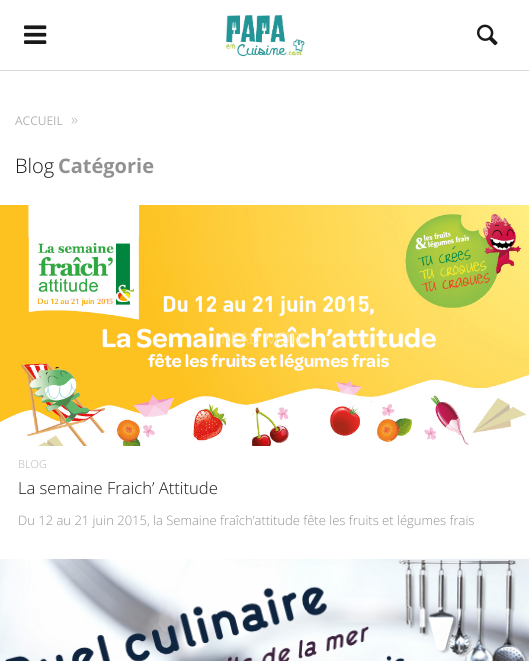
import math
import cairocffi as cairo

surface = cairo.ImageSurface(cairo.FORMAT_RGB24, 529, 661)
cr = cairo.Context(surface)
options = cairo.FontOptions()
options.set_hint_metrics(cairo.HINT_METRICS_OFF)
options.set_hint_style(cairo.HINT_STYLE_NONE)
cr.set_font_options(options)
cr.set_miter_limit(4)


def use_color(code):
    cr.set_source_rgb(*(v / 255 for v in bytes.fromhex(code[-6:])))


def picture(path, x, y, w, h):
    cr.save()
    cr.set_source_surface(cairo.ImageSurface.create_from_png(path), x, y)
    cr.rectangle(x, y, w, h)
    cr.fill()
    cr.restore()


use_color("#d8d8d8")
cr.paint()
use_color("#ffffff")
cr.rectangle(0, 0, 529, 70)
cr.fill()
picture("img1.png", 24, 25, 23, 19)
picture("img2.png", 226, 15, 79, 42)
picture("img3.png", 477, 24, 21, 22)
cr.rectangle(0, 71, 529, 488)
cr.fill()
cr.select_font_face("Open Sans")
cr.set_font_size(12)
use_color("#b3b3b3")
cr.move_to(15, 125)
cr.show_text("ACCUEIL")
cr.select_font_face("Open Sans Light")
cr.set_font_size(16)
cr.move_to(71, 125)
cr.show_text("»")
cr.set_font_size(20)
use_color("#1a1919")
cr.move_to(15, 173)
cr.show_text("Blog")
cr.select_font_face("Open Sans", cairo.FONT_SLANT_NORMAL, cairo.FONT_WEIGHT_BOLD)
use_color("#919191")
cr.move_to(58, 173)
cr.show_text("Catégorie")
picture("img4.png", 0, 205, 529, 241)
cr.select_font_face("Open Sans Light")
cr.set_font_size(16)
use_color("#fee393")
cr.move_to(221, 344)
cr.show_text("READ MORE")
cr.set_font_size(11)
use_color("#b3b3b3")
cr.move_to(18, 468)
cr.show_text("BLOG")
cr.set_font_size(16.6)
use_color("#1a1919")
cr.move_to(18, 494)
cr.show_text("La semaine Fraich’ Attitude")
cr.set_font_size(13)
use_color("#919191")
cr.move_to(18, 525)
cr.show_text("Du 12 au 21 juin 2015, la Semaine fraîch’attitude fête les fruits et légumes frais")
picture("img5.png", 0, 559, 529, 102)
surface.write_to_png("result.png")
